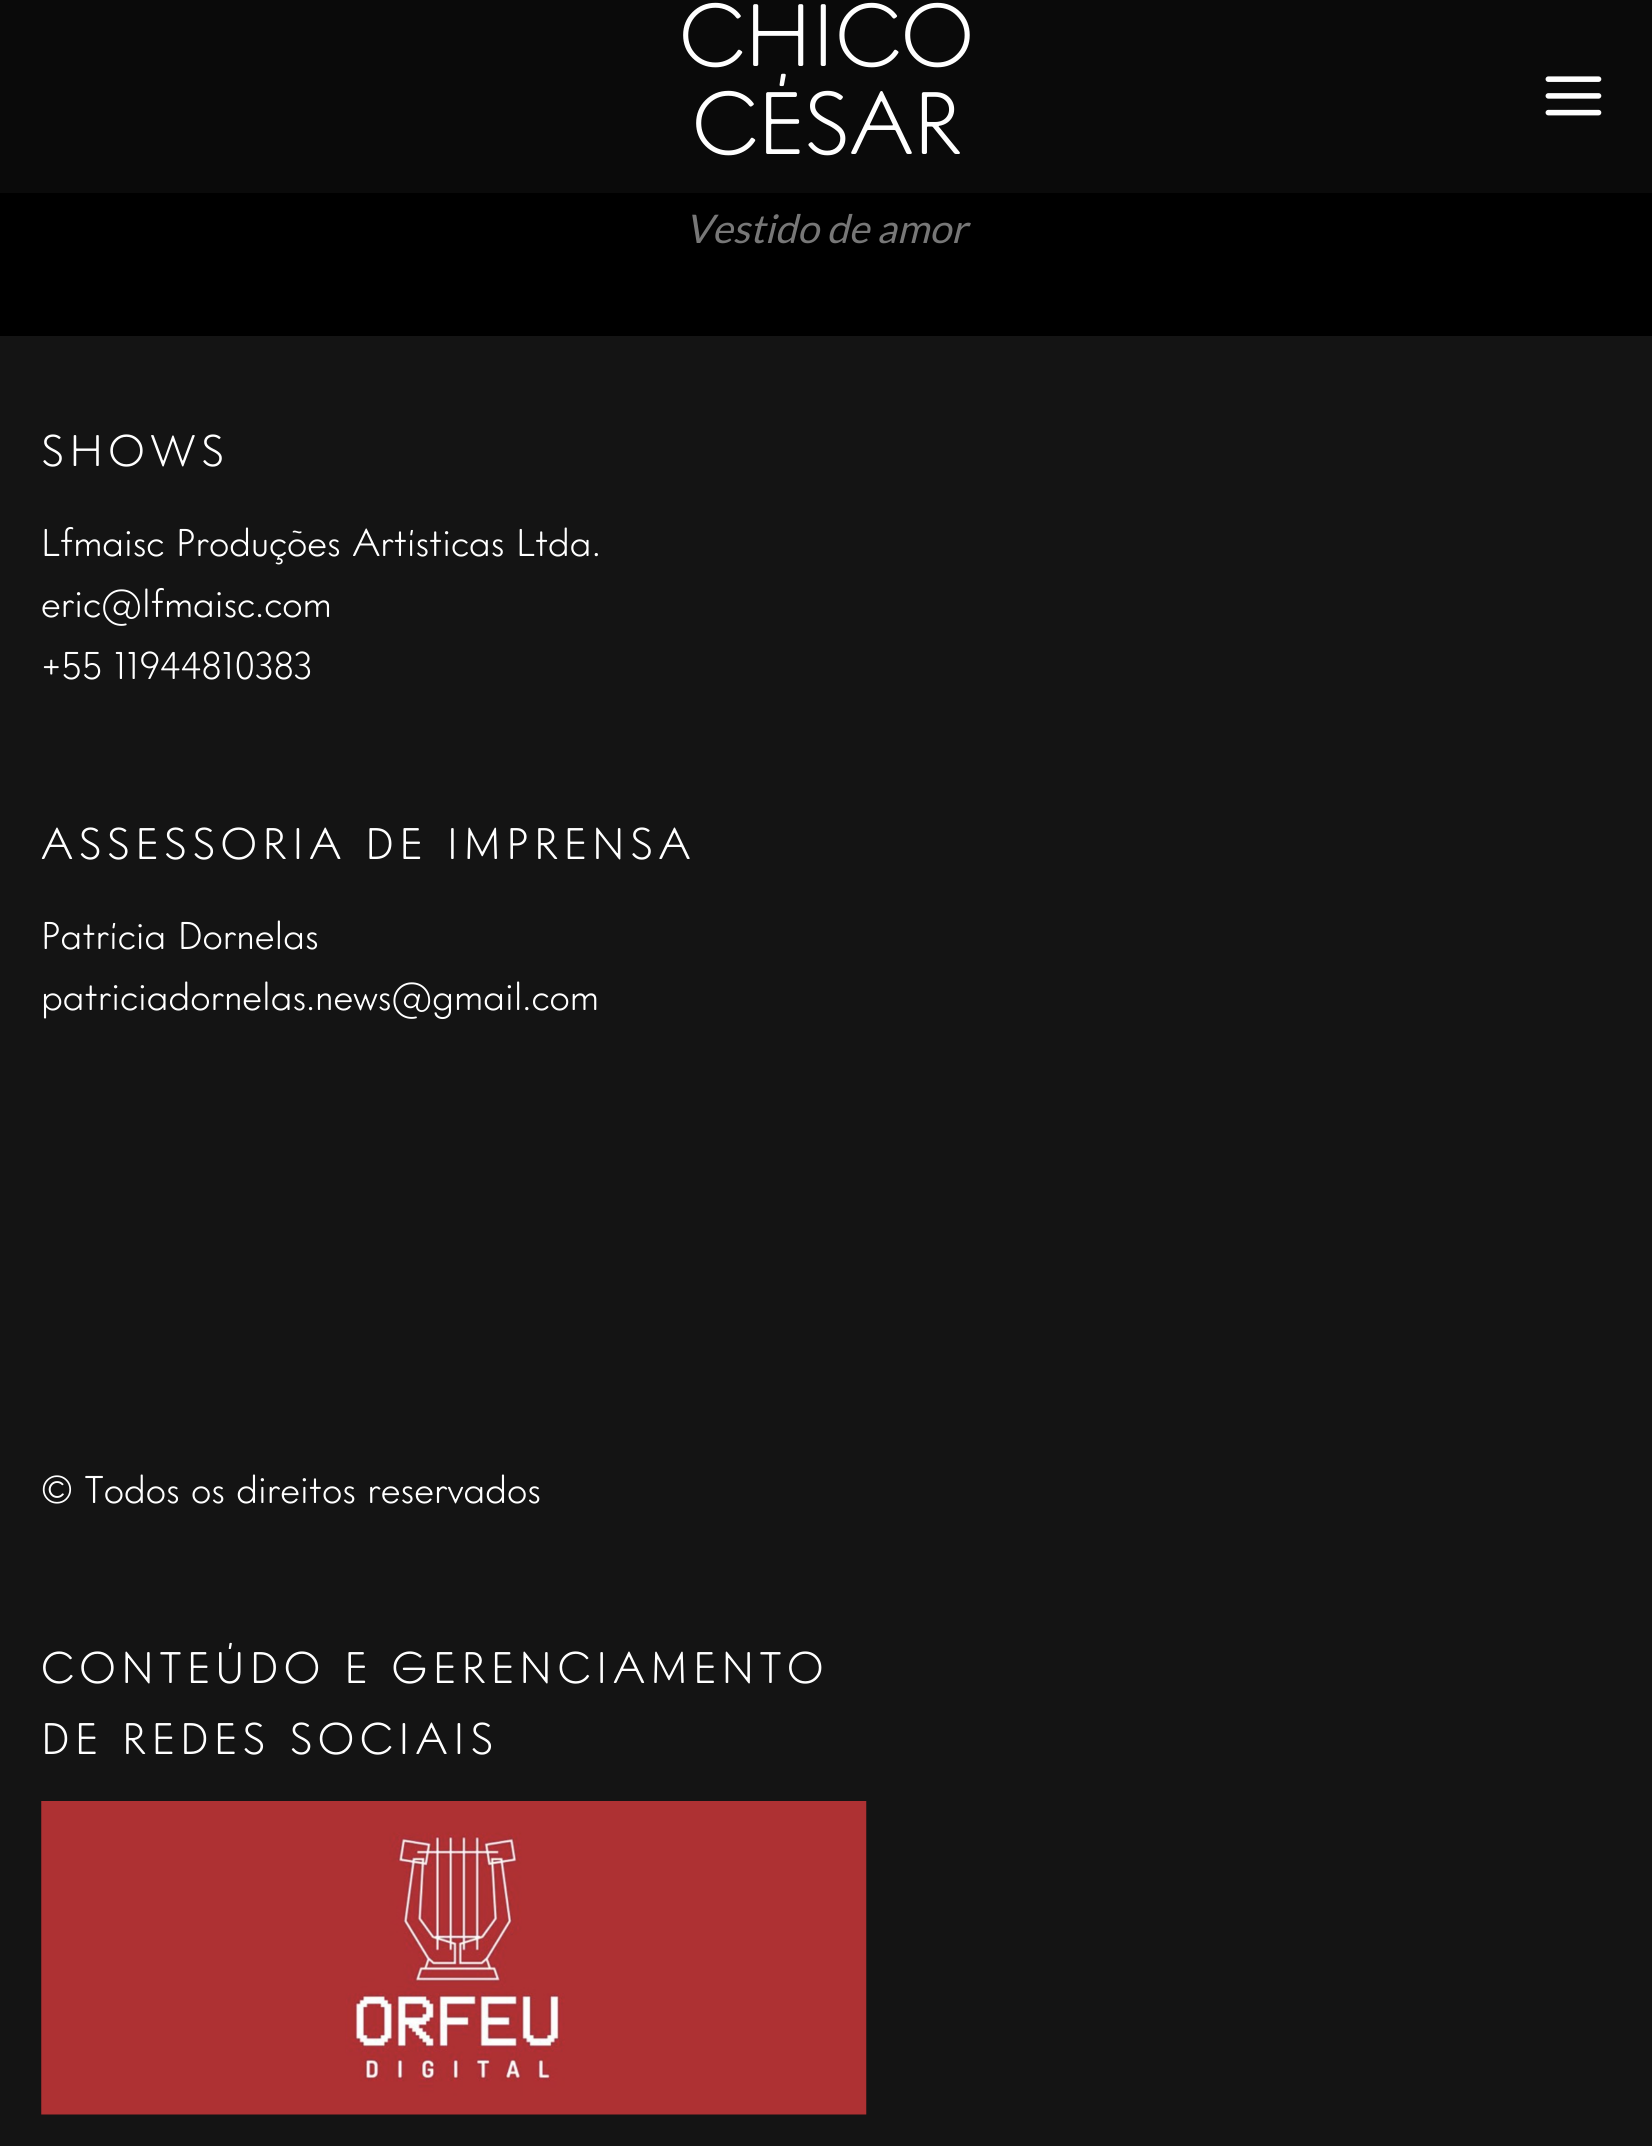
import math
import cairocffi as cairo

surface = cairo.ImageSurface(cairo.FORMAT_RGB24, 1652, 2146)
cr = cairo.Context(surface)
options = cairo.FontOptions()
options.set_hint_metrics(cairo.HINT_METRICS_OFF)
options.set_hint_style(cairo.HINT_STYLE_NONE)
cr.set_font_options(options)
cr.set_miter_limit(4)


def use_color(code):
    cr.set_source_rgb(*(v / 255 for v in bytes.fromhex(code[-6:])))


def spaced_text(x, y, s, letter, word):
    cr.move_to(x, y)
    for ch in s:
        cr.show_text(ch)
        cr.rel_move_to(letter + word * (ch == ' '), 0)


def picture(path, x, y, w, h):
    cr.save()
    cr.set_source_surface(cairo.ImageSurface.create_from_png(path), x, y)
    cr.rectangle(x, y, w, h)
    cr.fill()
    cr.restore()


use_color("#000000")
cr.paint()
use_color("#0a0a0a")
cr.rectangle(0, 0, 1652, 193)
cr.fill()
cr.select_font_face("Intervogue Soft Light")
cr.set_font_size(88)
use_color("#ffffff")
cr.move_to(679, 66)
cr.show_text("CHICO")
cr.move_to(692, 154)
cr.show_text("CÉSAR")
cr.select_font_face("Lato", cairo.FONT_SLANT_ITALIC)
cr.set_font_size(39.5)
use_color("#777777")
cr.move_to(685, 243)
cr.show_text("Vestido de amor")
picture("img1.png", 1545, 76, 57, 40)
use_color("#141414")
cr.rectangle(0, 336, 1652, 1810)
cr.fill()
cr.select_font_face("Intervogue Soft Light")
cr.set_font_size(44)
use_color("#ffffff")
spaced_text(41, 466, "SHOWS", 5.5, 0)
cr.set_font_size(38.5)
cr.move_to(41, 556)
cr.show_text("Lfmaisc Produções Artísticas Ltda.")
cr.move_to(41, 617)
cr.show_text("eric@lfmaisc.com")
cr.move_to(41, 679)
cr.show_text("+55 11944810383")
cr.set_font_size(44)
spaced_text(41, 859, "ASSESSORIA DE IMPRENSA", 5.5, 0)
cr.set_font_size(38.5)
cr.move_to(41, 949)
cr.show_text("Patrícia Dornelas")
cr.move_to(41, 1010)
cr.show_text("patriciadornelas.news@gmail.com")
cr.move_to(41, 1503)
cr.show_text("© Todos os direitos reservados")
cr.set_font_size(44)
spaced_text(41, 1683, "CONTEÚDO E GERENCIAMENTO", 5.5, 0)
spaced_text(41, 1754, "DE REDES SOCIAIS", 5.5, 0)
picture("img2.png", 41, 1801, 826, 314)
surface.write_to_png("result.png")
